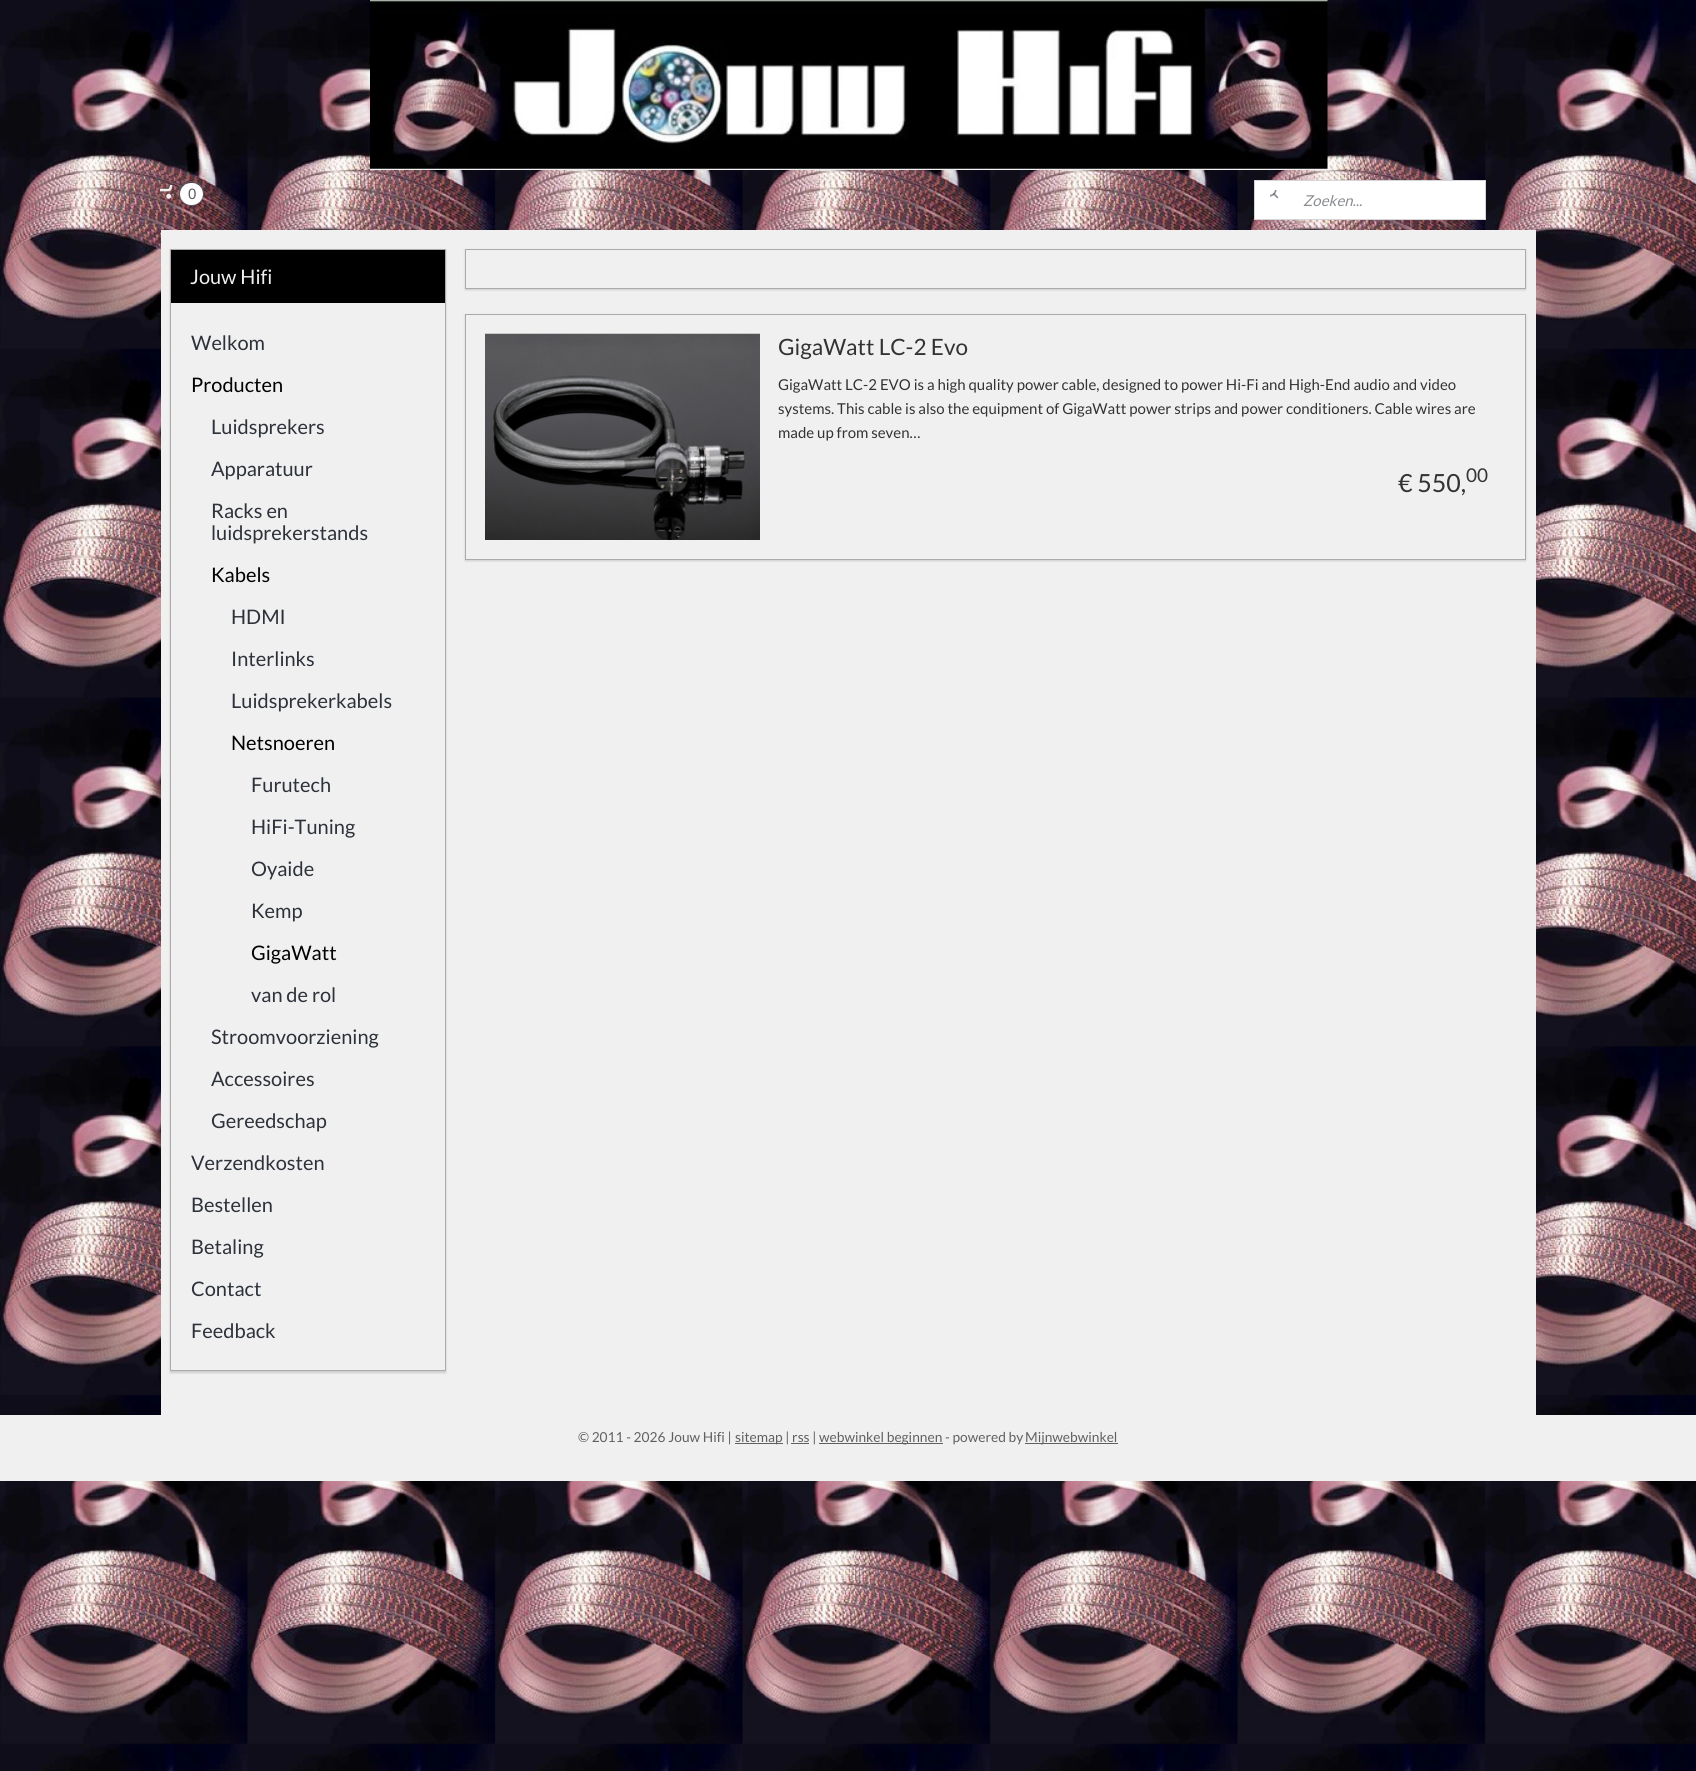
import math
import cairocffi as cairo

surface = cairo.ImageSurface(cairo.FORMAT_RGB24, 1696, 1771)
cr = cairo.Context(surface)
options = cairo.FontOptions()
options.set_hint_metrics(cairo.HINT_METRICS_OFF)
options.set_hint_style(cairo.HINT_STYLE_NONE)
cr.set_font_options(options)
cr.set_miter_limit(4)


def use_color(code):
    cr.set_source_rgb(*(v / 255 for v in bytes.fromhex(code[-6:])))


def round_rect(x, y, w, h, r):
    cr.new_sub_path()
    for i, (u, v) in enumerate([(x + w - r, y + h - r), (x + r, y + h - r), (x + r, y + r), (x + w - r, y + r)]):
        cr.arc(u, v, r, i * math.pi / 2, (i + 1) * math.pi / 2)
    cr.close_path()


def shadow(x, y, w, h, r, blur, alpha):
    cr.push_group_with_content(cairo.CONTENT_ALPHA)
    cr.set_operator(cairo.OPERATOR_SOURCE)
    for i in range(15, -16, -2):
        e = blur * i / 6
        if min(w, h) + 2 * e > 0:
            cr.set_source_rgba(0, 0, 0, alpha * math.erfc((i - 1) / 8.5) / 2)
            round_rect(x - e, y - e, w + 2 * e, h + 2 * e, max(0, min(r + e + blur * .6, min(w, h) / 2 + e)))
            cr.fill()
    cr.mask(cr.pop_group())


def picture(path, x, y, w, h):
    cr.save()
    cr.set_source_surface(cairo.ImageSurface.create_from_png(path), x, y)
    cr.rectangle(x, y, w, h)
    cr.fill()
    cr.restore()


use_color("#ffffff")
cr.paint()
picture("img1.png", 0, 0, 1696, 1771)
picture("img2.png", 370, 0, 958, 170)
picture("img3.png", 160, 185, 13, 14)
cr.arc(191.5, 193.5, 12, 0, 2 * math.pi)
use_color("#575b62")
cr.set_line_width(1)
cr.stroke()
use_color("#ffffff")
round_rect(180, 183, 23, 22, 11)
cr.fill()
cr.select_font_face("Liberation Sans")
cr.set_font_size(15)
use_color("#575b62")
cr.move_to(188, 199)
cr.show_text("0")
use_color("#ffffff")
cr.rectangle(1254.5, 180.5, 231, 39)
cr.fill_preserve()
use_color("#d3d5d9")
cr.stroke()
picture("img4.png", 1270, 190, 9, 9)
cr.select_font_face("Lato", cairo.FONT_SLANT_ITALIC)
use_color("#898c91")
cr.move_to(1303, 206)
cr.show_text("Zoeken...")
use_color("#f0f0f0")
cr.rectangle(161, 230, 1375, 1185)
cr.fill()
cr.save()
cr.set_fill_rule(cairo.FILL_RULE_EVEN_ODD)
cr.new_path()
cr.move_to(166, 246)
cr.line_to(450, 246)
cr.line_to(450, 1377)
cr.line_to(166, 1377)
cr.close_path()
cr.move_to(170, 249)
cr.line_to(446, 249)
cr.line_to(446, 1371)
cr.line_to(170, 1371)
cr.close_path()
cr.clip()
use_color("#000000")
shadow(170, 250, 276, 1123, 0, 1, 0.15)
cr.restore()
cr.rectangle(170.5, 249.5, 275, 1121)
use_color("#aaaaaa")
cr.stroke()
use_color("#000000")
cr.rectangle(171, 250, 274, 53)
cr.fill()
cr.select_font_face("Lato")
cr.set_font_size(20)
use_color("#f0f0f0")
cr.move_to(190, 284)
cr.show_text("Jouw Hifi")
use_color("#2d3139")
cr.move_to(191, 350)
cr.show_text("Welkom")
use_color("#000000")
cr.move_to(191, 392)
cr.show_text("Producten")
use_color("#2d3139")
cr.move_to(211, 434)
cr.show_text("Luidsprekers")
cr.move_to(211, 476)
cr.show_text("Apparatuur")
cr.move_to(211, 518)
cr.show_text("Racks en")
cr.move_to(211, 540)
cr.show_text("luidsprekerstands")
use_color("#000000")
cr.move_to(211, 582)
cr.show_text("Kabels")
use_color("#2d3139")
cr.move_to(231, 624)
cr.show_text("HDMI")
cr.move_to(231, 666)
cr.show_text("Interlinks")
cr.move_to(231, 708)
cr.show_text("Luidsprekerkabels")
use_color("#000000")
cr.move_to(231, 750)
cr.show_text("Netsnoeren")
use_color("#2d3139")
cr.move_to(251, 792)
cr.show_text("Furutech")
cr.move_to(251, 834)
cr.show_text("HiFi-Tuning")
cr.move_to(251, 876)
cr.show_text("Oyaide")
cr.move_to(251, 918)
cr.show_text("Kemp")
use_color("#000000")
cr.move_to(251, 960)
cr.show_text("GigaWatt")
use_color("#2d3139")
cr.move_to(251, 1002)
cr.show_text("van de rol")
cr.move_to(211, 1044)
cr.show_text("Stroomvoorziening")
cr.move_to(211, 1086)
cr.show_text("Accessoires")
cr.move_to(211, 1128)
cr.show_text("Gereedschap")
cr.move_to(191, 1170)
cr.show_text("Verzendkosten")
cr.move_to(191, 1212)
cr.show_text("Bestellen")
cr.move_to(191, 1254)
cr.show_text("Betaling")
cr.move_to(191, 1296)
cr.show_text("Contact")
cr.move_to(191, 1338)
cr.show_text("Feedback")
cr.save()
cr.set_fill_rule(cairo.FILL_RULE_EVEN_ODD)
cr.new_path()
cr.move_to(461, 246)
cr.line_to(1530, 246)
cr.line_to(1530, 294)
cr.line_to(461, 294)
cr.close_path()
cr.move_to(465, 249)
cr.line_to(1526, 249)
cr.line_to(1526, 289)
cr.line_to(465, 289)
cr.close_path()
cr.clip()
use_color("#000000")
shadow(465, 250, 1061, 40, 0, 1, 0.15)
cr.restore()
cr.rectangle(465.5, 249.5, 1060, 39)
use_color("#aaaaaa")
cr.stroke()
cr.save()
cr.set_fill_rule(cairo.FILL_RULE_EVEN_ODD)
cr.new_path()
cr.move_to(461, 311)
cr.line_to(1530, 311)
cr.line_to(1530, 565)
cr.line_to(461, 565)
cr.close_path()
cr.move_to(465, 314)
cr.line_to(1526, 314)
cr.line_to(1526, 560)
cr.line_to(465, 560)
cr.close_path()
cr.clip()
use_color("#000000")
shadow(465, 315, 1061, 246, 0, 1, 0.15)
cr.restore()
cr.rectangle(465.5, 314.5, 1060, 245)
cr.stroke()
picture("img5.png", 485, 333, 275, 207)
cr.set_font_size(22.5)
use_color("#333333")
cr.move_to(778, 355)
cr.show_text("GigaWatt LC-2 Evo")
cr.set_font_size(15)
cr.move_to(778, 390)
cr.show_text("GigaWatt LC-2 EVO is a high quality power cable, designed to power Hi-Fi and High-End audio and video")
cr.move_to(778, 414)
cr.show_text("systems. This cable is also the equipment of GigaWatt power strips and power conditioners. Cable wires are")
cr.move_to(778, 438)
cr.show_text("made up from seven…")
cr.set_font_size(25)
cr.move_to(1398, 492)
cr.show_text("€ 550,")
cr.set_font_size(19)
cr.move_to(1466, 482)
cr.show_text("00")
use_color("#f0f0f0")
cr.rectangle(0, 1415, 1696, 66)
cr.fill()
cr.set_font_size(13.75)
use_color("#606060")
cr.move_to(578, 1442)
cr.show_text("© 2011 - 2026 Jouw Hifi |")
cr.rectangle(735, 1443, 48, 1)
cr.fill()
cr.move_to(735, 1442)
cr.show_text("sitemap | rss |")
cr.rectangle(819, 1443, 124, 1)
cr.fill()
cr.move_to(819, 1442)
cr.show_text("webwinkel beginnen")
cr.move_to(945, 1442)
cr.show_text("- powered by")
cr.rectangle(1025, 1443, 93, 1)
cr.fill()
cr.move_to(1025, 1442)
cr.show_text("Mijnwebwinkel")
cr.rectangle(791, 1443, 18, 1)
cr.fill()
surface.write_to_png("result.png")
